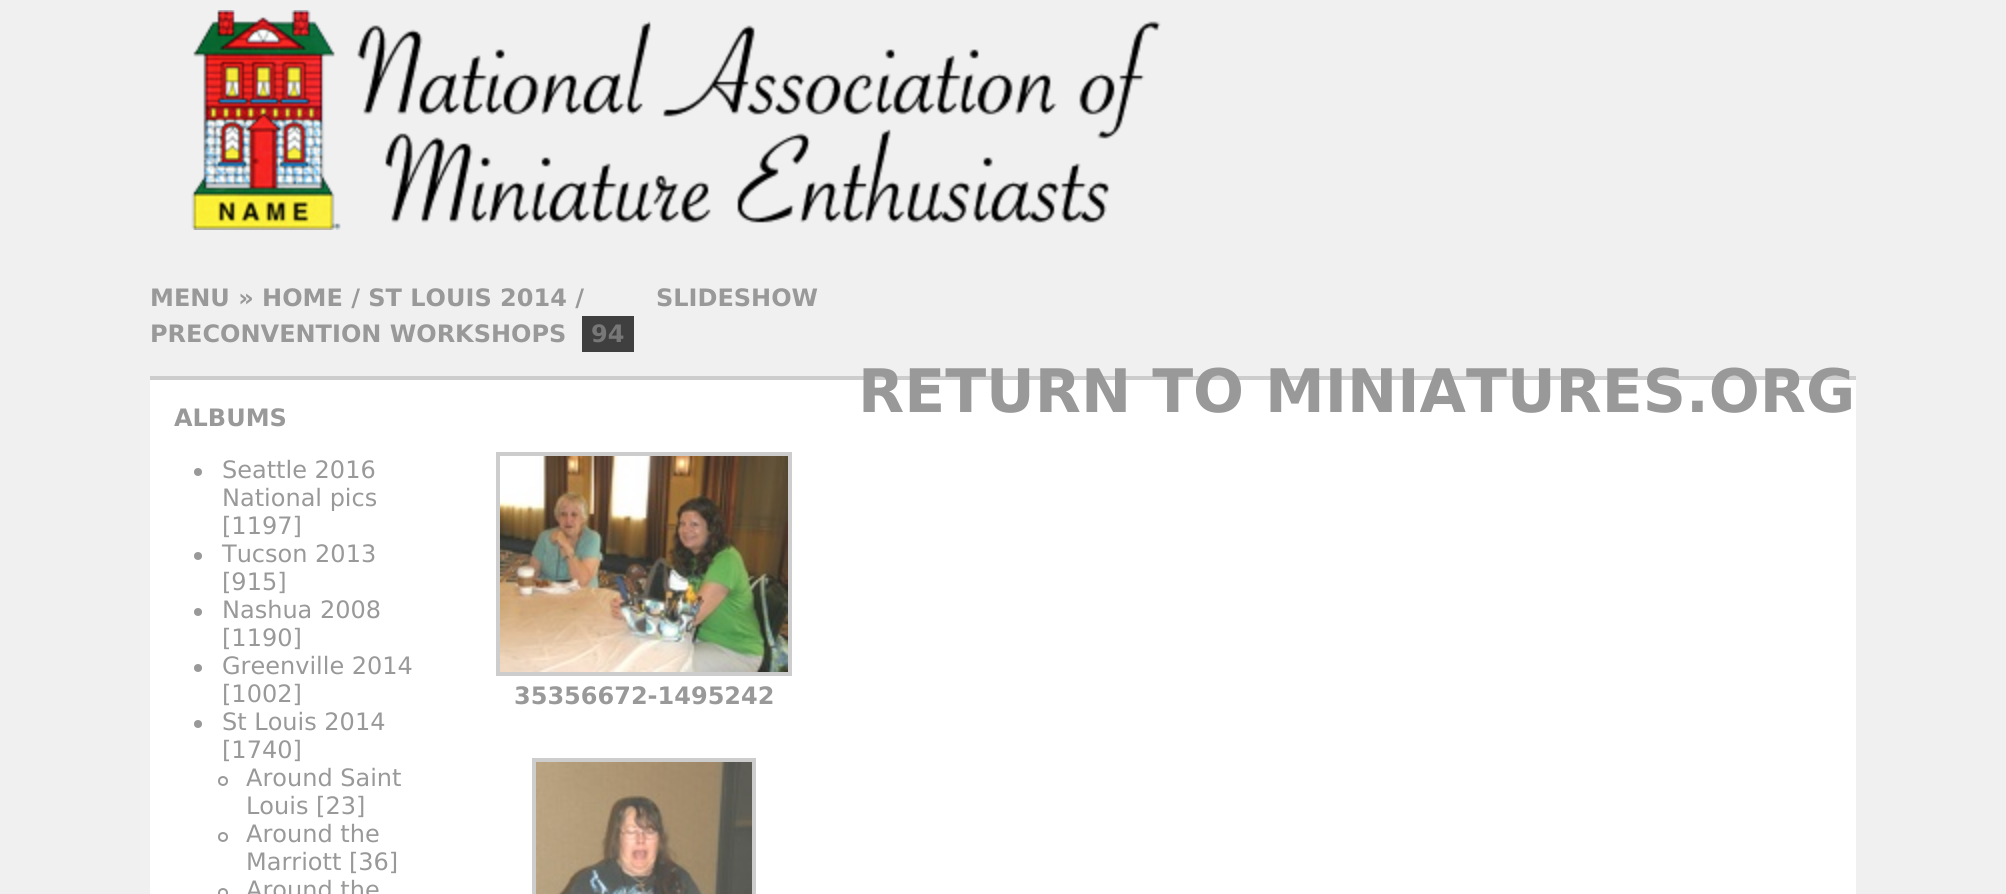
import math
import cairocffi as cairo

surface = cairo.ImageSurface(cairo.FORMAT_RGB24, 2006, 894)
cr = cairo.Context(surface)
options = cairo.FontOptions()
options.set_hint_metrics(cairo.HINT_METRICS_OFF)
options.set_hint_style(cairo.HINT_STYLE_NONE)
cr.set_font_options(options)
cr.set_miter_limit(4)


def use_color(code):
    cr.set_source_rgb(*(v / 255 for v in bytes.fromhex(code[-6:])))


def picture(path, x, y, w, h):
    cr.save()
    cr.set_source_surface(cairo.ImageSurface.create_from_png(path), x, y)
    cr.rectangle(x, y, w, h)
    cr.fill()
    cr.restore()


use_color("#f0f0f0")
cr.paint()
cr.select_font_face("DejaVu Sans", cairo.FONT_SLANT_NORMAL, cairo.FONT_WEIGHT_BOLD)
cr.set_font_size(24)
use_color("#999999")
cr.move_to(150, 306)
cr.show_text("MENU » HOME / ST LOUIS 2014 /")
cr.move_to(656, 306)
cr.show_text("SLIDESHOW")
cr.move_to(150, 342)
cr.show_text("PRECONVENTION WORKSHOPS")
use_color("#3f3f3f")
cr.rectangle(582, 316, 52, 36)
cr.fill()
use_color("#777777")
cr.move_to(591, 342)
cr.show_text("94")
picture("img1.png", 191, 10, 970, 220)
use_color("#ffffff")
cr.rectangle(150, 380, 1706, 514)
cr.fill()
use_color("#cdcdcd")
cr.rectangle(150, 376, 1706, 4)
cr.fill()
cr.set_font_size(60)
use_color("#999999")
cr.move_to(858, 412)
cr.show_text("RETURN TO MINIATURES.ORG")
cr.set_font_size(24)
cr.move_to(174, 426)
cr.show_text("ALBUMS")
cr.new_path()
cr.arc(198, 472, 4, 0, 2 * math.pi)
cr.fill()
cr.select_font_face("DejaVu Sans")
cr.move_to(222, 478)
cr.show_text("Seattle 2016")
cr.move_to(222, 506)
cr.show_text("National pics")
cr.move_to(222, 534)
cr.show_text("[1197]")
cr.new_path()
cr.arc(198, 556, 4, 0, 2 * math.pi)
cr.fill()
cr.move_to(222, 562)
cr.show_text("Tucson 2013")
cr.move_to(222, 590)
cr.show_text("[915]")
cr.new_path()
cr.arc(198, 612, 4, 0, 2 * math.pi)
cr.fill()
cr.move_to(222, 618)
cr.show_text("Nashua 2008")
cr.move_to(222, 646)
cr.show_text("[1190]")
cr.new_path()
cr.arc(198, 668, 4, 0, 2 * math.pi)
cr.fill()
cr.move_to(222, 674)
cr.show_text("Greenville 2014")
cr.move_to(222, 702)
cr.show_text("[1002]")
cr.new_path()
cr.arc(198, 724, 4, 0, 2 * math.pi)
cr.fill()
cr.move_to(222, 730)
cr.show_text("St Louis 2014")
cr.move_to(222, 758)
cr.show_text("[1740]")
cr.new_path()
cr.arc(223, 781, 4, 0, 2 * math.pi)
cr.stroke()
cr.move_to(246, 786)
cr.show_text("Around Saint")
cr.move_to(246, 814)
cr.show_text("Louis [23]")
cr.new_path()
cr.arc(223, 837, 4, 0, 2 * math.pi)
cr.stroke()
cr.move_to(246, 842)
cr.show_text("Around the")
cr.move_to(246, 870)
cr.show_text("Marriott [36]")
cr.new_path()
cr.arc(223, 893, 4, 0, 2 * math.pi)
cr.stroke()
cr.move_to(246, 898)
cr.show_text("Around the")
cr.rectangle(498, 454, 292, 220)
use_color("#cdcdcd")
cr.set_line_width(4)
cr.stroke()
picture("img2.png", 500, 456, 288, 216)
cr.select_font_face("DejaVu Sans", cairo.FONT_SLANT_NORMAL, cairo.FONT_WEIGHT_BOLD)
use_color("#999999")
cr.move_to(514, 704)
cr.show_text("35356672-1495242")
cr.rectangle(534, 760, 220, 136)
use_color("#cdcdcd")
cr.stroke()
picture("img3.png", 536, 762, 216, 132)
surface.write_to_png("result.png")
